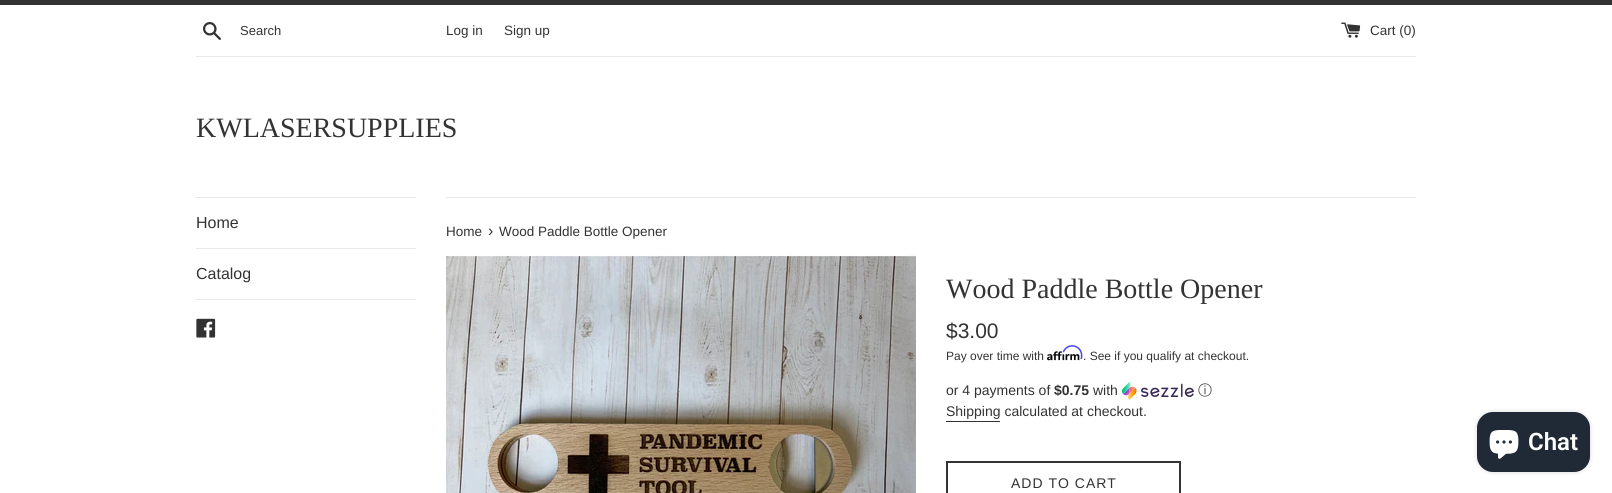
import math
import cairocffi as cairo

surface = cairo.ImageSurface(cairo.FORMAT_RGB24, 1612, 493)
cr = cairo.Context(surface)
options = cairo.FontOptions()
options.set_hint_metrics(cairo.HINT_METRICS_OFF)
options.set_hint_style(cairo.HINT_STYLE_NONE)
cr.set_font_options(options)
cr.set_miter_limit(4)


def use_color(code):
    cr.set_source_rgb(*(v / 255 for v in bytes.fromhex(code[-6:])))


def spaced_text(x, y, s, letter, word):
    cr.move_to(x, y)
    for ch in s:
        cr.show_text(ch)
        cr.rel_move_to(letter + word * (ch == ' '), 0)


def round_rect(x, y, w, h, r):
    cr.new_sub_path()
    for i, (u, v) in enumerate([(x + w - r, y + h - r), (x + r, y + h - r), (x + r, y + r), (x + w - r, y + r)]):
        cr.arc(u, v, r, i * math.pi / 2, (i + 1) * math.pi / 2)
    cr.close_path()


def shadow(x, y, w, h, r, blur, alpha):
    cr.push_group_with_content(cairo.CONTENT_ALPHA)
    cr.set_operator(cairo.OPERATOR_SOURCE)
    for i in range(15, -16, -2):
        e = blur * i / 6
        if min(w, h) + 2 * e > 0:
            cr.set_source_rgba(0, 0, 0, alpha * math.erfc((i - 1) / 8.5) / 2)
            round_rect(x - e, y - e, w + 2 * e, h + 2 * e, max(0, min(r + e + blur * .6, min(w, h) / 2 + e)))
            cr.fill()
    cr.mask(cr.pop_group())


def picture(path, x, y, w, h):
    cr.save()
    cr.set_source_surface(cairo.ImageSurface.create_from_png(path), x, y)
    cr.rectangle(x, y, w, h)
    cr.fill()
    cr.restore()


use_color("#ffffff")
cr.paint()
use_color("#333333")
cr.rectangle(0, 0, 1612, 5)
cr.fill()
picture("img1.png", 203, 22, 18, 18)
cr.select_font_face("Liberation Sans")
cr.set_font_size(13)
cr.move_to(240, 35)
cr.show_text("Search")
cr.set_font_size(13.5)
cr.move_to(446, 35)
cr.show_text("Log in")
cr.move_to(504, 35)
cr.show_text("Sign up")
picture("img2.png", 1341, 22, 20, 16)
cr.move_to(1370, 35)
cr.show_text("Cart (0)")
use_color("#e8e8e8")
cr.rectangle(196, 56, 1220, 1)
cr.fill()
cr.select_font_face("Liberation Serif")
cr.set_font_size(28)
use_color("#333333")
cr.move_to(196, 137)
cr.show_text("KWLASERSUPPLIES")
use_color("#e8e8e8")
cr.rectangle(196, 197, 220, 1)
cr.fill()
cr.rectangle(196, 248, 220, 1)
cr.fill()
cr.select_font_face("Liberation Sans")
cr.set_font_size(16)
use_color("#333333")
cr.move_to(196, 228)
cr.show_text("Home")
use_color("#e8e8e8")
cr.rectangle(196, 299, 220, 1)
cr.fill()
use_color("#333333")
cr.move_to(196, 279)
cr.show_text("Catalog")
picture("img3.png", 196, 318, 20, 20)
use_color("#e8e8e8")
cr.rectangle(446, 197, 970, 1)
cr.fill()
cr.set_font_size(13.5)
use_color("#333333")
cr.move_to(446, 236)
cr.show_text("Home")
cr.set_font_size(16)
cr.move_to(488, 236)
cr.show_text("›")
cr.set_font_size(13.5)
cr.move_to(499, 236)
cr.show_text("Wood Paddle Bottle Opener")
picture("img4.png", 446, 254, 470, 239)
cr.select_font_face("Liberation Serif")
cr.set_font_size(28)
cr.move_to(946, 298)
cr.show_text("Wood Paddle Bottle Opener")
cr.select_font_face("Liberation Sans")
cr.set_font_size(21)
cr.move_to(946, 338)
cr.show_text("$3.00")
cr.set_font_size(12)
cr.move_to(946, 360)
cr.show_text("Pay over time with")
picture("img6.png", 1047, 351, 33, 10)
picture("img5.png", 1062, 345, 21, 15)
cr.move_to(1083, 360)
cr.show_text(". See if you qualify at checkout.")
cr.set_font_size(14)
cr.move_to(946, 395)
cr.show_text("or 4 payments of")
cr.select_font_face("Liberation Sans", cairo.FONT_SLANT_NORMAL, cairo.FONT_WEIGHT_BOLD)
cr.move_to(1054, 395)
cr.show_text("$0.75")
cr.select_font_face("Liberation Sans")
cr.move_to(1093, 395)
cr.show_text("with")
picture("img7.png", 1122, 382, 72, 18)
cr.select_font_face("WenQuanYi Zen Hei Medium")
cr.move_to(1198, 395)
cr.show_text("ⓘ")
cr.select_font_face("Liberation Sans")
cr.move_to(946, 416)
cr.show_text("Shipping calculated at checkout.")
cr.rectangle(946, 421, 54, 1)
cr.fill()
cr.rectangle(947, 462, 233, 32)
cr.stroke()
spaced_text(1011, 488, "ADD TO CART", 1, 0)
use_color("#000000")
shadow(1477, 412, 113, 60, 16, 2.5, 0.15)
use_color("#202a36")
round_rect(1477, 412, 113, 60, 16)
cr.fill()
picture("img8.png", 1489, 430, 30, 29)
cr.select_font_face("Roboto SemiBold")
cr.set_font_size(24)
use_color("#ffffff")
cr.move_to(1528, 450)
cr.show_text("Chat")
surface.write_to_png("result.png")
